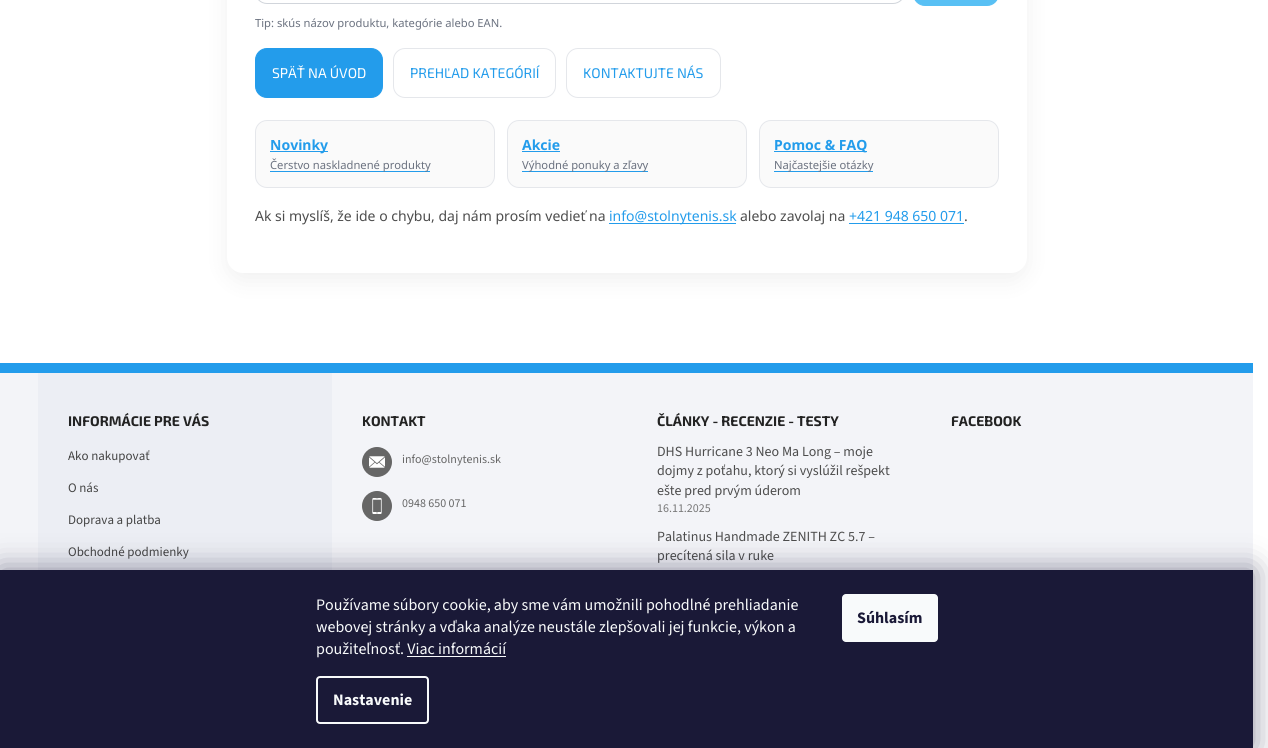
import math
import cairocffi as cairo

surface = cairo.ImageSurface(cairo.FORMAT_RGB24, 1268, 748)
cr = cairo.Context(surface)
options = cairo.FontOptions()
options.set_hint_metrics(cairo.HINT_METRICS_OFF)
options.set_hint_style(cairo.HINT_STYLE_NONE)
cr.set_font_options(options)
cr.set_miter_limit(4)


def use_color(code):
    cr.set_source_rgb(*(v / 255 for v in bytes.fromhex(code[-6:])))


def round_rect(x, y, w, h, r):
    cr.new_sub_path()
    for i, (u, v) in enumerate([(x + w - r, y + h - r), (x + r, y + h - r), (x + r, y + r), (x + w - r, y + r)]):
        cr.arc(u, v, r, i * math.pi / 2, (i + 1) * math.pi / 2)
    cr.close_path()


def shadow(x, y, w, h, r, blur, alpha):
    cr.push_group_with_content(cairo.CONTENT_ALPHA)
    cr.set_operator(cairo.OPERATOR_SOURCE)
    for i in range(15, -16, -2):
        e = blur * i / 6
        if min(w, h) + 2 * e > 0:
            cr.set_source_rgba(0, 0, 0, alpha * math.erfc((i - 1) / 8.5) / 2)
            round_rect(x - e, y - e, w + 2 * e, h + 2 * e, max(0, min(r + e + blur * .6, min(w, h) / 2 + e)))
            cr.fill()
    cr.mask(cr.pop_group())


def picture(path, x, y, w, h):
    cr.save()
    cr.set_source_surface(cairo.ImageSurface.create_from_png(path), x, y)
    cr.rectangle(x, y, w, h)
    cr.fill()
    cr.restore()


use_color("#ffffff")
cr.paint()
use_color("#000000")
shadow(227, -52, 800, 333, 16, 12, 0.06)
use_color("#ffffff")
round_rect(227, -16, 800, 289, 16)
cr.fill()
round_rect(255.5, -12.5, 649, 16, 11.5)
use_color("#d1d5db")
cr.set_line_width(1)
cr.stroke()
use_color("#58c0f4")
round_rect(913.5, -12.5, 85, 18, 11.5)
cr.fill_preserve()
cr.stroke()
cr.select_font_face("Noto Sans")
cr.set_font_size(11.2)
use_color("#6b7280")
cr.move_to(255, 27)
cr.show_text("Tip: skús názov produktu, kategórie alebo EAN.")
use_color("#239ceb")
round_rect(255.5, 48.5, 127, 49, 11.5)
cr.fill_preserve()
cr.stroke()
cr.select_font_face("Exo 2")
cr.set_font_size(14)
use_color("#ffffff")
cr.move_to(272, 78)
cr.show_text("SPÄŤ NA ÚVOD")
round_rect(393.5, 48.5, 162, 49, 11.5)
use_color("#e5e7eb")
cr.stroke()
use_color("#239ceb")
cr.move_to(410, 78)
cr.show_text("PREHĽAD KATEGÓRIÍ")
round_rect(566.5, 48.5, 154, 49, 11.5)
use_color("#e5e7eb")
cr.stroke()
use_color("#239ceb")
cr.move_to(583, 78)
cr.show_text("KONTAKTUJTE NÁS")
use_color("#fafafa")
round_rect(255.5, 120.5, 239, 67, 11.5)
cr.fill_preserve()
use_color("#e5e7eb")
cr.stroke()
use_color("#239ceb")
cr.rectangle(270, 151, 58, 1)
cr.fill()
cr.select_font_face("Noto Sans", cairo.FONT_SLANT_NORMAL, cairo.FONT_WEIGHT_BOLD)
cr.move_to(270, 150)
cr.show_text("Novinky")
cr.rectangle(270, 171, 160, 1)
cr.fill()
cr.select_font_face("Noto Sans")
cr.set_font_size(11.2)
use_color("#6b7280")
cr.move_to(270, 169)
cr.show_text("Čerstvo naskladnené produkty")
use_color("#fafafa")
round_rect(507.5, 120.5, 239, 67, 11.5)
cr.fill_preserve()
use_color("#e5e7eb")
cr.stroke()
cr.select_font_face("Noto Sans", cairo.FONT_SLANT_NORMAL, cairo.FONT_WEIGHT_BOLD)
cr.set_font_size(14)
use_color("#239ceb")
cr.move_to(522, 150)
cr.show_text("Akcie")
cr.rectangle(522, 151, 38, 1)
cr.fill()
cr.rectangle(522, 171, 126, 1)
cr.fill()
cr.select_font_face("Noto Sans")
cr.set_font_size(11.2)
use_color("#6b7280")
cr.move_to(522, 169)
cr.show_text("Výhodné ponuky a zľavy")
use_color("#fafafa")
round_rect(759.5, 120.5, 239, 67, 11.5)
cr.fill_preserve()
use_color("#e5e7eb")
cr.stroke()
use_color("#239ceb")
cr.rectangle(774, 151, 93, 1)
cr.fill()
cr.select_font_face("Noto Sans", cairo.FONT_SLANT_NORMAL, cairo.FONT_WEIGHT_BOLD)
cr.set_font_size(14)
cr.move_to(774, 150)
cr.show_text("Pomoc & FAQ")
cr.rectangle(774, 171, 99, 1)
cr.fill()
cr.select_font_face("Noto Sans")
cr.set_font_size(11.2)
use_color("#6b7280")
cr.move_to(774, 169)
cr.show_text("Najčastejšie otázky")
cr.set_font_size(14)
use_color("#4d4d4d")
cr.move_to(255, 221)
cr.show_text("Ak si myslíš, že ide o chybu, daj nám prosím vedieť na")
use_color("#239ceb")
cr.rectangle(609, 223, 127, 1)
cr.fill()
cr.move_to(609, 221)
cr.show_text("info@stolnytenis.sk")
use_color("#4d4d4d")
cr.move_to(740, 221)
cr.show_text("alebo zavolaj na")
use_color("#239ceb")
cr.move_to(849, 221)
cr.show_text("+421 948 650 071")
cr.rectangle(849, 223, 115, 1)
cr.fill()
use_color("#4d4d4d")
cr.move_to(964, 221)
cr.show_text(".")
use_color("#f3f4f8")
cr.rectangle(0, 373, 1253, 197)
cr.fill()
use_color("#239ceb")
cr.rectangle(0, 363, 1253, 10)
cr.fill()
use_color("#eceef4")
cr.rectangle(38, 373, 294, 197)
cr.fill()
cr.select_font_face("Exo 2", cairo.FONT_SLANT_NORMAL, cairo.FONT_WEIGHT_BOLD)
use_color("#222222")
cr.move_to(68, 426)
cr.show_text("INFORMÁCIE PRE VÁS")
cr.select_font_face("Source Sans 3")
cr.set_font_size(13)
use_color("#444444")
cr.move_to(68, 460)
cr.show_text("Ako nakupovať")
cr.move_to(68, 492)
cr.show_text("O nás")
cr.move_to(68, 524)
cr.show_text("Doprava a platba")
cr.move_to(68, 556)
cr.show_text("Obchodné podmienky")
cr.select_font_face("Exo 2", cairo.FONT_SLANT_NORMAL, cairo.FONT_WEIGHT_BOLD)
cr.set_font_size(14)
use_color("#222222")
cr.move_to(362, 426)
cr.show_text("KONTAKT")
use_color("#666666")
cr.new_path()
cr.arc(377, 462, 15, 0, 2 * math.pi)
cr.fill()
picture("img1.png", 369, 456, 16, 12)
cr.select_font_face("Source Sans 3")
cr.set_font_size(12)
cr.move_to(402, 463)
cr.show_text("info@stolnytenis.sk")
cr.new_path()
cr.arc(377, 506, 15, 0, 2 * math.pi)
cr.fill()
picture("img2.png", 372, 498, 10, 16)
cr.move_to(402, 507)
cr.show_text("0948 650 071")
cr.select_font_face("Exo 2", cairo.FONT_SLANT_NORMAL, cairo.FONT_WEIGHT_BOLD)
cr.set_font_size(14)
use_color("#222222")
cr.move_to(657, 426)
cr.show_text("ČLÁNKY - RECENZIE - TESTY")
cr.select_font_face("Source Sans 3")
use_color("#4d4d4d")
cr.move_to(657, 456)
cr.show_text("DHS Hurricane 3 Neo Ma Long – moje")
cr.move_to(657, 475)
cr.show_text("dojmy z poťahu, ktorý si vyslúžil rešpekt")
cr.move_to(657, 495)
cr.show_text("ešte pred prvým úderom")
cr.set_font_size(12)
use_color("#767676")
cr.move_to(657, 512)
cr.show_text("16.11.2025")
cr.set_font_size(14)
use_color("#4d4d4d")
cr.move_to(657, 541)
cr.show_text("Palatinus Handmade ZENITH ZC 5.7 –")
cr.move_to(657, 560)
cr.show_text("precítená sila v ruke")
cr.select_font_face("Exo 2", cairo.FONT_SLANT_NORMAL, cairo.FONT_WEIGHT_BOLD)
use_color("#222222")
cr.move_to(951, 426)
cr.show_text("FACEBOOK")
use_color("#1b1939")
shadow(0, 570, 1253, 178, 0, 15, 0.5)
use_color("#1a1937")
cr.rectangle(0, 570, 1253, 178)
cr.fill()
cr.select_font_face("Source Sans 3")
cr.set_font_size(16)
use_color("#f8fafb")
cr.move_to(316, 610)
cr.show_text("Používame súbory cookie, aby sme vám umožnili pohodlné prehliadanie")
cr.move_to(316, 632)
cr.show_text("webovej stránky a vďaka analýze neustále zlepšovali jej funkcie, výkon a")
cr.move_to(316, 654)
cr.show_text("použiteľnosť. Viac informácií")
cr.rectangle(407, 656, 99, 1)
cr.fill()
round_rect(317, 677, 111, 46, 3)
cr.set_line_width(2)
cr.stroke()
cr.select_font_face("Source Sans 3", cairo.FONT_SLANT_NORMAL, cairo.FONT_WEIGHT_BOLD)
cr.move_to(333, 705)
cr.show_text("Nastavenie")
round_rect(842, 594, 96, 48, 4)
cr.fill()
use_color("#1a1937")
cr.move_to(857, 623)
cr.show_text("Súhlasím")
surface.write_to_png("result.png")
